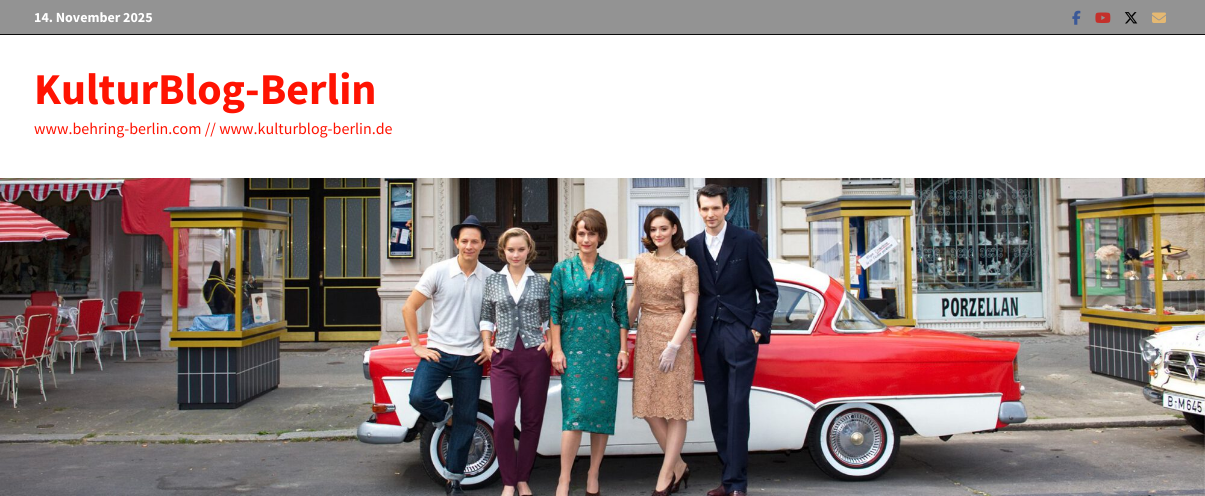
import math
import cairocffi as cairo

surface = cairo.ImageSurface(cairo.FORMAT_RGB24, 1205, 496)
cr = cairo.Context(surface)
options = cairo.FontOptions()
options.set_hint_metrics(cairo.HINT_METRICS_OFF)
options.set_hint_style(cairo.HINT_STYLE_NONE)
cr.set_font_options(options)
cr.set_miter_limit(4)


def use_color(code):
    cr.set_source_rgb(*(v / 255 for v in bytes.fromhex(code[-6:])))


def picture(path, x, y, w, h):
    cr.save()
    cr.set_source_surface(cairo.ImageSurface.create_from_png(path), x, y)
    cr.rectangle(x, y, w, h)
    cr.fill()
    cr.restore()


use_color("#939393")
cr.paint()
use_color("#0a0a0a")
cr.rectangle(0, 34, 1205, 1)
cr.fill()
cr.select_font_face("Source Sans Pro", cairo.FONT_SLANT_NORMAL, cairo.FONT_WEIGHT_BOLD)
cr.set_font_size(14)
use_color("#ffffff")
cr.move_to(34, 22)
cr.show_text("14. November 2025")
picture("img1.png", 1072, 10, 9, 15)
picture("img2.png", 1095, 12, 16, 11)
picture("img3.png", 1124, 12, 14, 12)
picture("img4.png", 1152, 12, 14, 11)
cr.rectangle(0, 35, 1205, 143)
cr.fill()
cr.set_font_size(44)
use_color("#ff1302")
cr.move_to(34, 104)
cr.show_text("KulturBlog-Berlin")
cr.select_font_face("Source Sans Pro")
cr.set_font_size(16)
cr.move_to(34, 134)
cr.show_text("www.behring-berlin.com // www.kulturblog-berlin.de")
picture("img5.png", 0, 178, 1205, 318)
surface.write_to_png("result.png")
